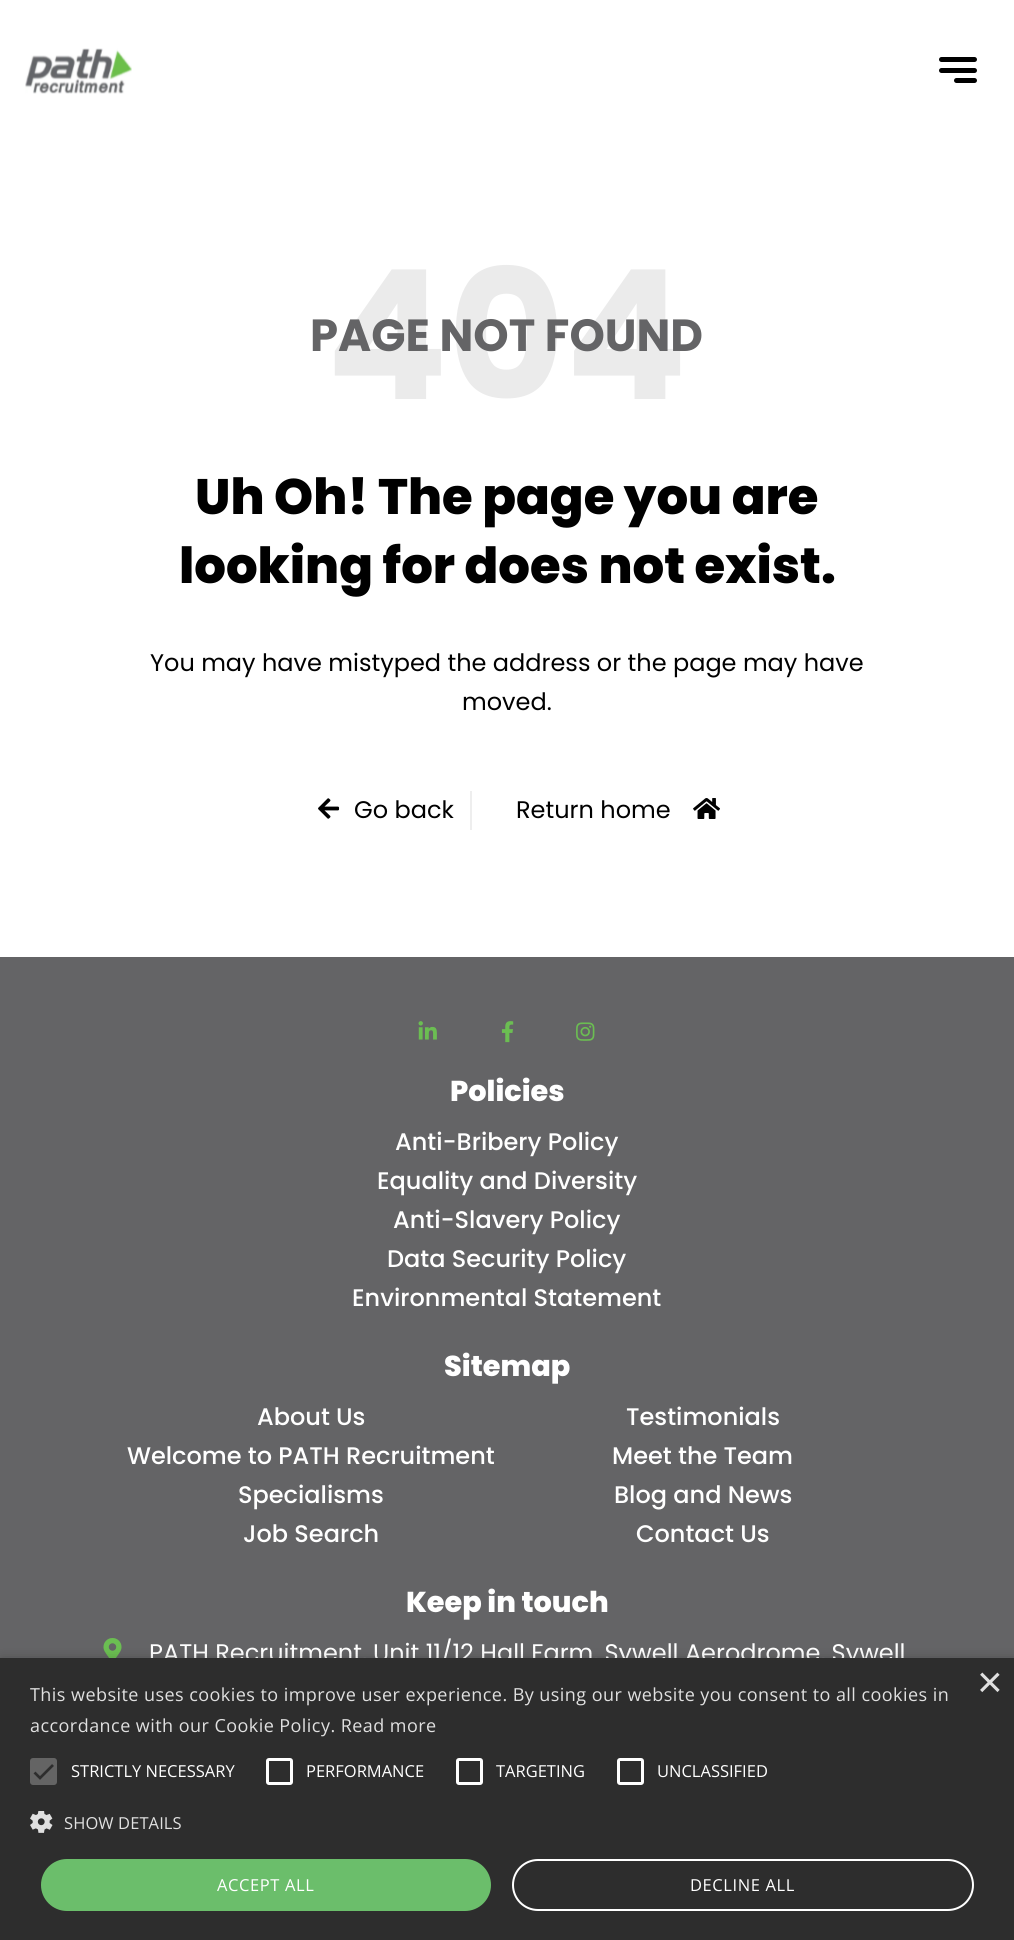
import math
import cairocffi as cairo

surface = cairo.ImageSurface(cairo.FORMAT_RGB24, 1014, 1940)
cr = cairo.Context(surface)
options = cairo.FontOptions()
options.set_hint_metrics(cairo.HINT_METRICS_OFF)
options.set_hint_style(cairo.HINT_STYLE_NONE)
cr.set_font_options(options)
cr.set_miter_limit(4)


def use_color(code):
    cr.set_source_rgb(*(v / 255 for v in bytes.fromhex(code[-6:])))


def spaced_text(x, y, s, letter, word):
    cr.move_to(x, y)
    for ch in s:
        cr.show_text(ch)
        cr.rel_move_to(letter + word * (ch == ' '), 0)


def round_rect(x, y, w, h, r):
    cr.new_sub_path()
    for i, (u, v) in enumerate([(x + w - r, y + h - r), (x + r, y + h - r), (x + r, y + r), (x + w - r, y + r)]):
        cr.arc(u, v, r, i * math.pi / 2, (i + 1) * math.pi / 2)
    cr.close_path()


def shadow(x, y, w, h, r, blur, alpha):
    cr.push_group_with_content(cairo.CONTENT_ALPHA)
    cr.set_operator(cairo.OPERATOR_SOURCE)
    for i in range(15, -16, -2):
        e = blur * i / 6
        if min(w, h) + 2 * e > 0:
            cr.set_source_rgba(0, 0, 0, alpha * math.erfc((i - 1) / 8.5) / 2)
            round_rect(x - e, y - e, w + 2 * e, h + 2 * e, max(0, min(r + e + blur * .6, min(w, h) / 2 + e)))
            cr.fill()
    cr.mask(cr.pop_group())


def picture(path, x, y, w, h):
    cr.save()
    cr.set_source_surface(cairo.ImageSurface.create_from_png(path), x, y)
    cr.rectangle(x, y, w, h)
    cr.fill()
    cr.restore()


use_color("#ffffff")
cr.paint()
picture("img1.png", 25, 48, 107, 46)
use_color("#000000")
round_rect(939, 68, 38, 5, 2.5)
cr.fill()
round_rect(939, 57, 38, 5, 2.5)
cr.fill()
round_rect(954, 78, 23, 5, 2.5)
cr.fill()
cr.select_font_face("Poppins", cairo.FONT_SLANT_NORMAL, cairo.FONT_WEIGHT_BOLD)
cr.set_font_size(180)
use_color("#ebebeb")
cr.move_to(326, 399)
cr.show_text("404")
cr.set_font_size(45)
use_color("#646466")
cr.move_to(310, 351)
cr.show_text("PAGE NOT FOUND")
cr.select_font_face("Poppins ExtraBold")
cr.set_font_size(49.75)
use_color("#000000")
cr.move_to(195, 514)
cr.show_text("Uh Oh! The page you are")
cr.move_to(179, 583)
cr.show_text("looking for does not exist.")
cr.select_font_face("Poppins")
cr.set_font_size(24)
cr.move_to(150, 671)
cr.show_text("You may have mistyped the address or the page may have")
cr.move_to(462, 710)
cr.show_text("moved.")
use_color("#eeeeee")
cr.rectangle(470, 791, 2, 39)
cr.fill()
picture("img2.png", 318, 798, 22, 21)
use_color("#000000")
cr.move_to(354, 818)
cr.show_text("Go back")
cr.move_to(516, 818)
cr.show_text("Return home")
picture("img3.png", 693, 798, 27, 21)
use_color("#646466")
cr.rectangle(0, 957, 1014, 701)
cr.fill()
picture("img4.png", 418, 1021, 19, 19)
picture("img5.png", 501, 1021, 13, 22)
picture("img6.png", 576, 1022, 19, 19)
cr.select_font_face("Poppins ExtraBold")
cr.set_font_size(28.75)
use_color("#ffffff")
cr.move_to(450, 1101)
cr.show_text("Policies")
cr.select_font_face("Poppins Medium")
cr.set_font_size(24)
cr.move_to(395, 1150)
cr.show_text("Anti-Bribery Policy")
cr.move_to(377, 1189)
cr.show_text("Equality and Diversity")
cr.move_to(393, 1228)
cr.show_text("Anti-Slavery Policy")
cr.move_to(387, 1267)
cr.show_text("Data Security Policy")
cr.move_to(352, 1306)
cr.show_text("Environmental Statement")
cr.select_font_face("Poppins ExtraBold")
cr.set_font_size(28.75)
cr.move_to(444, 1376)
cr.show_text("Sitemap")
cr.select_font_face("Poppins Medium")
cr.set_font_size(24)
cr.move_to(257, 1425)
cr.show_text("About Us")
cr.move_to(626, 1425)
cr.show_text("Testimonials")
cr.move_to(127, 1464)
cr.show_text("Welcome to PATH Recruitment")
cr.move_to(612, 1464)
cr.show_text("Meet the Team")
cr.move_to(238, 1503)
cr.show_text("Specialisms")
cr.move_to(614, 1503)
cr.show_text("Blog and News")
cr.move_to(243, 1542)
cr.show_text("Job Search")
cr.move_to(636, 1542)
cr.show_text("Contact Us")
cr.select_font_face("Poppins ExtraBold")
cr.set_font_size(28.75)
cr.move_to(406, 1612)
cr.show_text("Keep in touch")
picture("img7.png", 103, 1638, 19, 20)
cr.select_font_face("Poppins")
cr.set_font_size(24)
cr.move_to(149, 1661)
cr.show_text("P")
cr.move_to(163, 1661)
cr.show_text("ATH Recruitment, Unit 11/12 Hall Farm, Sywell Aerodrome, Sywell")
use_color("#000000")
shadow(2, 1661, 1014, 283, 0, 6, 0.35)
use_color("#2d2d2d")
cr.rectangle(0, 1658, 1014, 282)
cr.fill()
cr.select_font_face("Liberation Sans")
cr.set_font_size(44)
use_color("#e0e0e0")
cr.move_to(977, 1697)
cr.show_text("×")
cr.select_font_face("Open Sans")
cr.set_font_size(18)
spaced_text(30, 1701, "This website uses cookies to improve user experience. By using our website you consent to all cookies in", 0.45, 0)
spaced_text(30, 1732, "accordance with our Cookie Policy. Read more", 0.45, 0)
use_color("#646464")
round_rect(30, 1758, 27, 27, 3)
cr.fill()
cr.new_path()
cr.move_to(34.5, 1772.5)
cr.line_to(40, 1778)
cr.line_to(53, 1765)
use_color("#2d2d2d")
cr.set_line_width(2.7)
cr.stroke()
cr.set_font_size(16.5)
use_color("#ffffff")
cr.move_to(71, 1777)
cr.show_text("STRICTLY NECESSARY")
round_rect(267.5, 1759.5, 24, 24, 1.5)
cr.set_line_width(3)
cr.stroke()
cr.move_to(306, 1777)
cr.show_text("PERFORMANCE")
round_rect(457.5, 1759.5, 24, 24, 1.5)
cr.stroke()
cr.move_to(496, 1777)
cr.show_text("TARGETING")
round_rect(618.5, 1759.5, 24, 24, 1.5)
cr.stroke()
cr.move_to(657, 1777)
cr.show_text("UNCLASSIFIED")
picture("img8.png", 30, 1811, 23, 22)
use_color("#e0e0e0")
spaced_text(64, 1829, "SHOW DETAILS", 0.1, 0)
use_color("#6bbe6b")
round_rect(41, 1859, 450, 52, 26)
cr.fill()
use_color("#ffffff")
spaced_text(217, 1891, "ACCEPT ALL", 0.6, 0)
round_rect(513, 1860, 460, 50, 25)
cr.set_line_width(2)
cr.stroke()
spaced_text(690, 1891, "DECLINE ALL", 0.6, 0)
surface.write_to_png("result.png")
